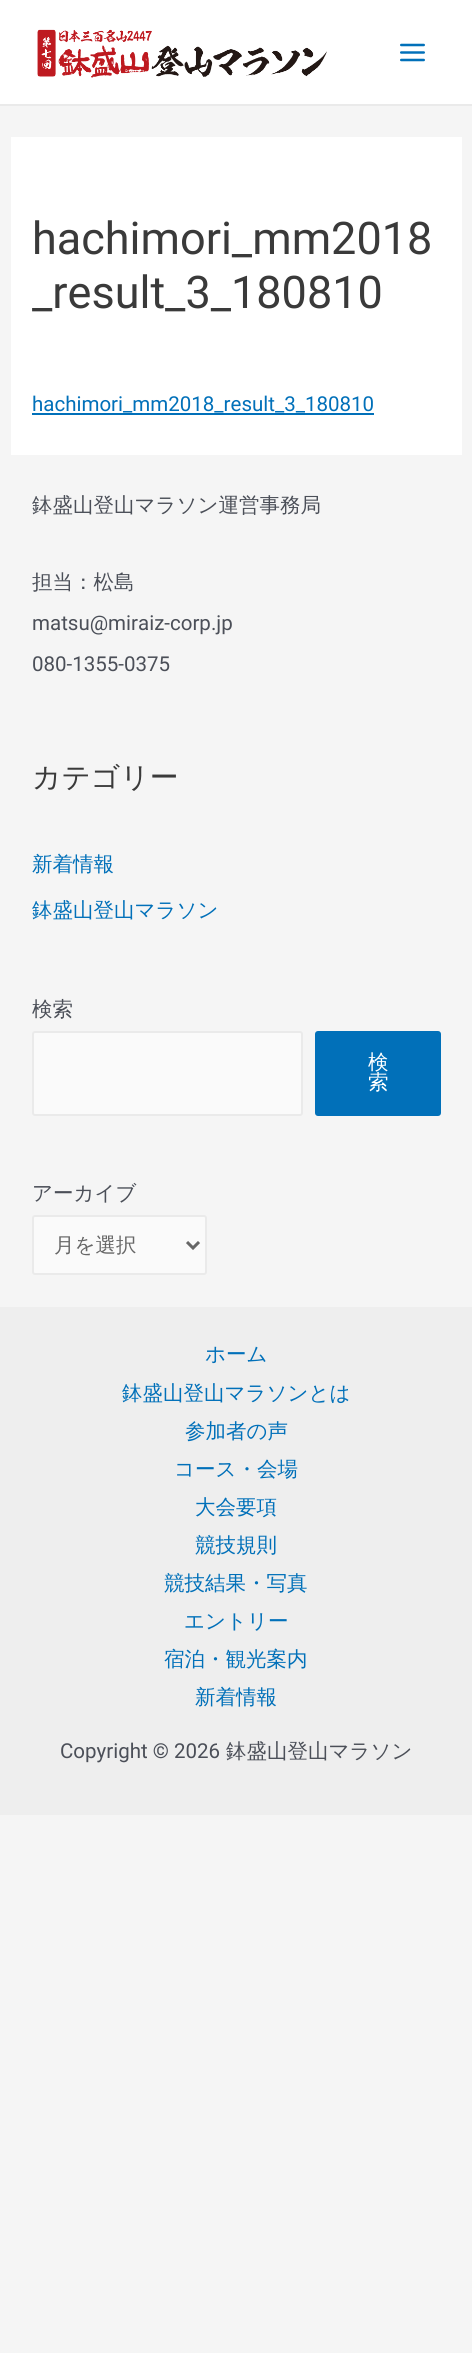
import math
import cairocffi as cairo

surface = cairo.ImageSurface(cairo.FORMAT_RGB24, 472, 2353)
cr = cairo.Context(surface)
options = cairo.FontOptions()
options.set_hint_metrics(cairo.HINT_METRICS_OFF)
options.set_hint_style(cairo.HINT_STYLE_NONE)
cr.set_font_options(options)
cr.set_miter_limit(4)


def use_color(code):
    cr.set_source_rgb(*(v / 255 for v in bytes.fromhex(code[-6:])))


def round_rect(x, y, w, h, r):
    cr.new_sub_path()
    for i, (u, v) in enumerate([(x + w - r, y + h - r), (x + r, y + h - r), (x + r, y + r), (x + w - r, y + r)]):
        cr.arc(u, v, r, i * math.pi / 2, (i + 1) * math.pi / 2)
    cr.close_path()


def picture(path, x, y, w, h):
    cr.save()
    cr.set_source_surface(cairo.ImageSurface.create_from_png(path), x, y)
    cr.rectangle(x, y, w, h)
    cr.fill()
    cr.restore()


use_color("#f5f5f5")
cr.paint()
use_color("#ffffff")
cr.rectangle(0, 0, 472, 104)
cr.fill()
use_color("#eaeaea")
cr.rectangle(0, 104, 472, 2)
cr.fill()
picture("img1.png", 37, 29, 290, 49)
picture("img2.png", 400, 43, 25, 19)
use_color("#ffffff")
cr.rectangle(11, 137, 451, 318)
cr.fill()
cr.select_font_face("Roboto")
cr.set_font_size(45)
use_color("#3a3a3a")
cr.move_to(32, 254)
cr.show_text("hachimori_mm2018")
cr.move_to(32, 308)
cr.show_text("_result_3_180810")
cr.set_font_size(20.5)
use_color("#0170b9")
cr.move_to(32, 411)
cr.show_text("hachimori_mm2018_result_3_180810")
cr.rectangle(32, 413, 342, 2)
cr.fill()
cr.select_font_face("WenQuanYi Zen Hei Medium")
use_color("#4b4f58")
cr.move_to(32, 512)
cr.show_text("鉢盛山登山マラソン運営事務局")
cr.move_to(32, 589)
cr.show_text("担当：松島")
cr.select_font_face("Roboto")
cr.move_to(32, 630)
cr.show_text("matsu@miraiz-corp.jp")
cr.move_to(32, 671)
cr.show_text("080-1355-0375")
cr.select_font_face("WenQuanYi Zen Hei Medium")
cr.set_font_size(28.75)
use_color("#3a3a3a")
cr.move_to(32, 787)
cr.show_text("カテゴリー")
cr.set_font_size(20.5)
use_color("#0170b9")
cr.move_to(32, 871)
cr.show_text("新着情報")
cr.move_to(32, 917)
cr.show_text("鉢盛山登山マラソン")
use_color("#4b4f58")
cr.move_to(32, 1016)
cr.show_text("検索")
use_color("#fafafa")
round_rect(33, 1032, 269, 83, 2)
cr.fill_preserve()
use_color("#eaeaea")
cr.stroke()
use_color("#0170b9")
round_rect(315, 1031, 126, 85, 3)
cr.fill()
use_color("#ffffff")
cr.move_to(368, 1069)
cr.show_text("検")
cr.move_to(368, 1089)
cr.show_text("索")
use_color("#4b4f58")
cr.move_to(32, 1200)
cr.show_text("アーカイブ")
use_color("#fafafa")
round_rect(33, 1216, 173, 58, 2)
cr.fill_preserve()
use_color("#eaeaea")
cr.stroke()
cr.new_path()
cr.move_to(187, 1242)
cr.line_to(193, 1248)
cr.line_to(199, 1242)
use_color("#666666")
cr.set_line_width(3)
cr.stroke()
cr.move_to(54, 1252)
cr.show_text("月を選択")
use_color("#eeeeee")
cr.rectangle(0, 1307, 472, 508)
cr.fill()
use_color("#0170b9")
cr.move_to(205, 1361)
cr.show_text("ホーム")
cr.move_to(122, 1400)
cr.show_text("鉢盛山登山マラソンとは")
cr.move_to(185, 1438)
cr.show_text("参加者の声")
cr.move_to(174, 1476)
cr.show_text("コース・会場")
cr.move_to(195, 1514)
cr.show_text("大会要項")
cr.move_to(195, 1552)
cr.show_text("競技規則")
cr.move_to(164, 1590)
cr.show_text("競技結果・写真")
cr.move_to(184, 1628)
cr.show_text("エントリー")
cr.move_to(164, 1666)
cr.show_text("宿泊・観光案内")
cr.move_to(195, 1704)
cr.show_text("新着情報")
cr.select_font_face("Roboto")
use_color("#4b4f58")
cr.move_to(60, 1758)
cr.show_text("Copyright © 2026")
cr.select_font_face("WenQuanYi Zen Hei Medium")
cr.move_to(226, 1758)
cr.show_text("鉢盛山登山マラソン")
surface.write_to_png("result.png")
